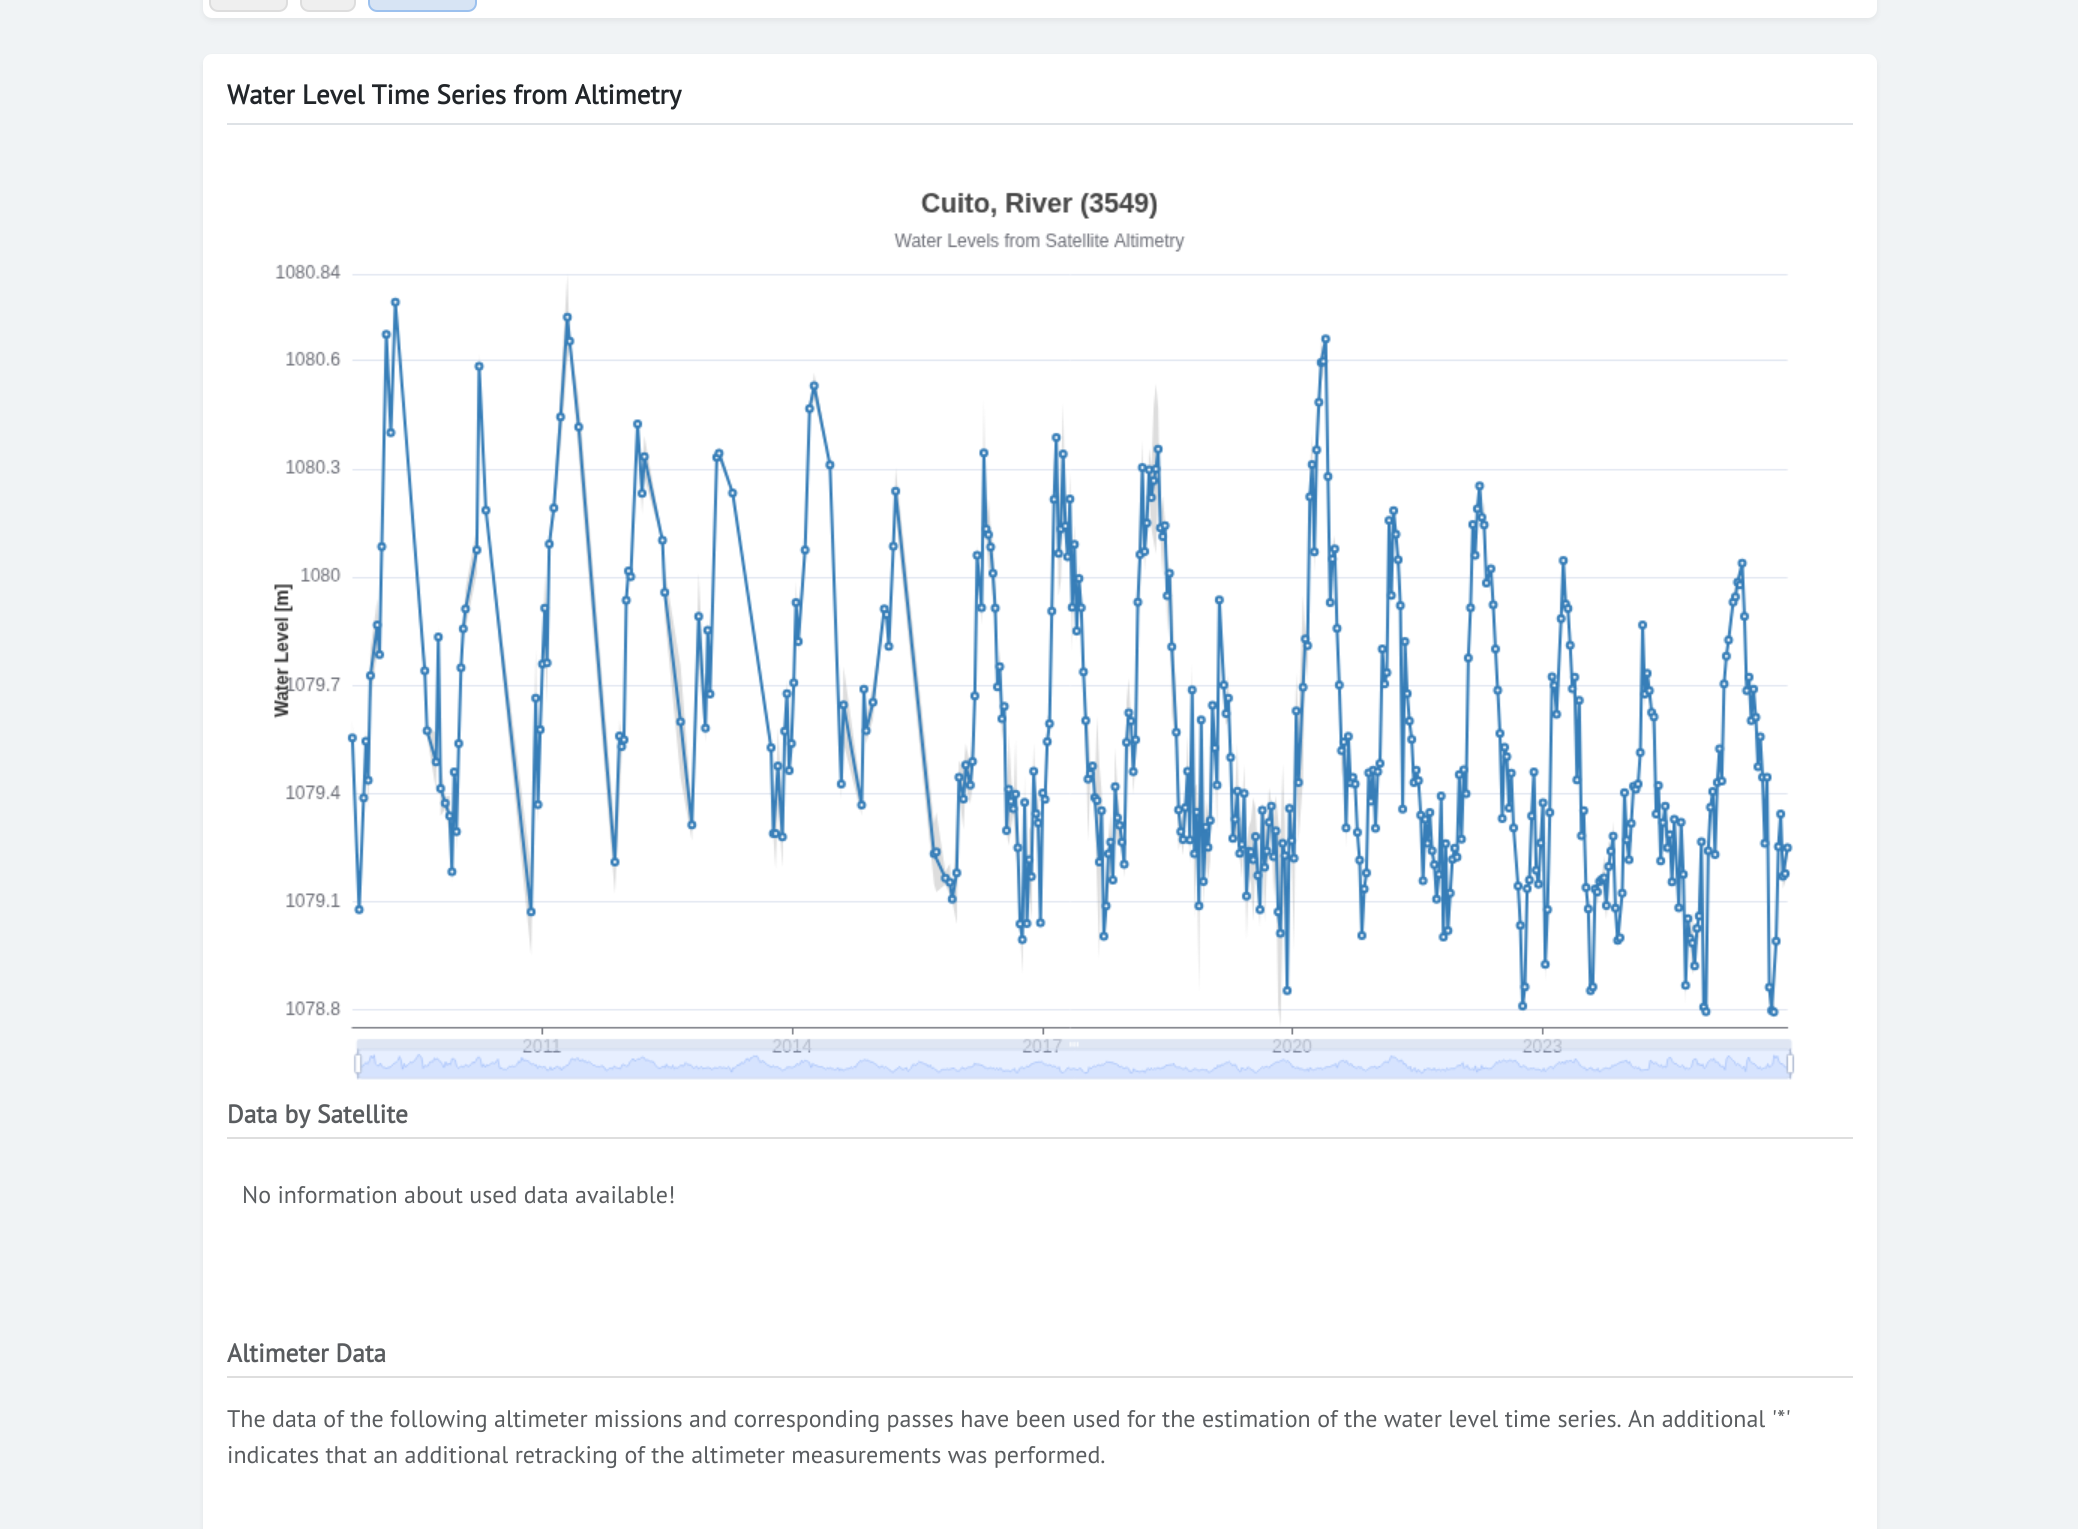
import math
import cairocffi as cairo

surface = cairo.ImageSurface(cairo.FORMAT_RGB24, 2078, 1529)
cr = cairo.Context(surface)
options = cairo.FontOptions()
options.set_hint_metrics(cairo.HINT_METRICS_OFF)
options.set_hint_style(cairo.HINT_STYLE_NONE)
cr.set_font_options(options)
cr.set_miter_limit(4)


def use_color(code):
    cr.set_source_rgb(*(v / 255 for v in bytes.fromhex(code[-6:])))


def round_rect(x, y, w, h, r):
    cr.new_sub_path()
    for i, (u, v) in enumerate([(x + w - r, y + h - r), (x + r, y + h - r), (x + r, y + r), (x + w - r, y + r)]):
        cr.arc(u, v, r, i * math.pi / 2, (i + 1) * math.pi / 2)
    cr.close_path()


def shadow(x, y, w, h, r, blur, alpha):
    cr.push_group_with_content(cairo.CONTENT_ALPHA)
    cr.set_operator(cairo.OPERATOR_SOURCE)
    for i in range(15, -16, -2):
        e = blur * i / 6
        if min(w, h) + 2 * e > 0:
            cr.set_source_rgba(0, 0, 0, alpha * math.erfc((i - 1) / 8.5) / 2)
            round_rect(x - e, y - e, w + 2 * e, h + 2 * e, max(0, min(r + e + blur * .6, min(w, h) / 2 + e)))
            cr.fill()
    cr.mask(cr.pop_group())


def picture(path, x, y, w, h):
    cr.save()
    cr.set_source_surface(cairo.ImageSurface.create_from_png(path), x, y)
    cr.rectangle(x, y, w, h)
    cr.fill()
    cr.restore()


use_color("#f0f3f5")
cr.paint()
use_color("#212529")
shadow(203, -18, 1674, 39, 9, 3, 0.07)
use_color("#ffffff")
round_rect(203, -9, 1674, 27, 9)
cr.fill()
use_color("#efefef")
round_rect(210, -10, 77, 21, 8)
cr.fill_preserve()
use_color("#dddddd")
cr.stroke()
use_color("#efefef")
round_rect(301, -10, 54, 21, 8)
cr.fill_preserve()
use_color("#dddddd")
cr.stroke()
use_color("#d7e4f4")
round_rect(369, -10, 107, 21, 8)
cr.fill_preserve()
use_color("#9cc1ee")
cr.stroke()
use_color("#212529")
shadow(203, 57, 1674, 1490, 9, 3, 0.07)
use_color("#ffffff")
round_rect(203, 54, 1674, 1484, 9)
cr.fill()
use_color("#dee2e6")
cr.rectangle(227, 123, 1626, 2)
cr.fill()
cr.select_font_face("PT Sans", cairo.FONT_SLANT_NORMAL, cairo.FONT_WEIGHT_BOLD)
cr.set_font_size(27)
use_color("#212529")
cr.move_to(227, 104)
cr.show_text("Water Level Time Series from Altimetry")
picture("img1.png", 274, 192, 1521, 888)
use_color("#dedede")
cr.rectangle(227, 1137, 1626, 2)
cr.fill()
cr.set_font_size(25.5)
use_color("#595c5f")
cr.move_to(227, 1123)
cr.show_text("Data by Satellite")
cr.select_font_face("PT Sans")
cr.set_font_size(24)
cr.move_to(242, 1203)
cr.show_text("No information about used data available!")
use_color("#dedede")
cr.rectangle(227, 1376, 1626, 2)
cr.fill()
cr.select_font_face("PT Sans", cairo.FONT_SLANT_NORMAL, cairo.FONT_WEIGHT_BOLD)
cr.set_font_size(25.5)
use_color("#595c5f")
cr.move_to(227, 1362)
cr.show_text("Altimeter Data")
cr.select_font_face("PT Sans")
cr.set_font_size(24)
cr.move_to(227, 1427)
cr.show_text("The data of the following altimeter missions and corresponding passes have been used for the estimation of the water level time series. An additional '*'")
cr.move_to(227, 1463)
cr.show_text("indicates that an additional retracking of the altimeter measurements was performed.")
surface.write_to_png("result.png")
